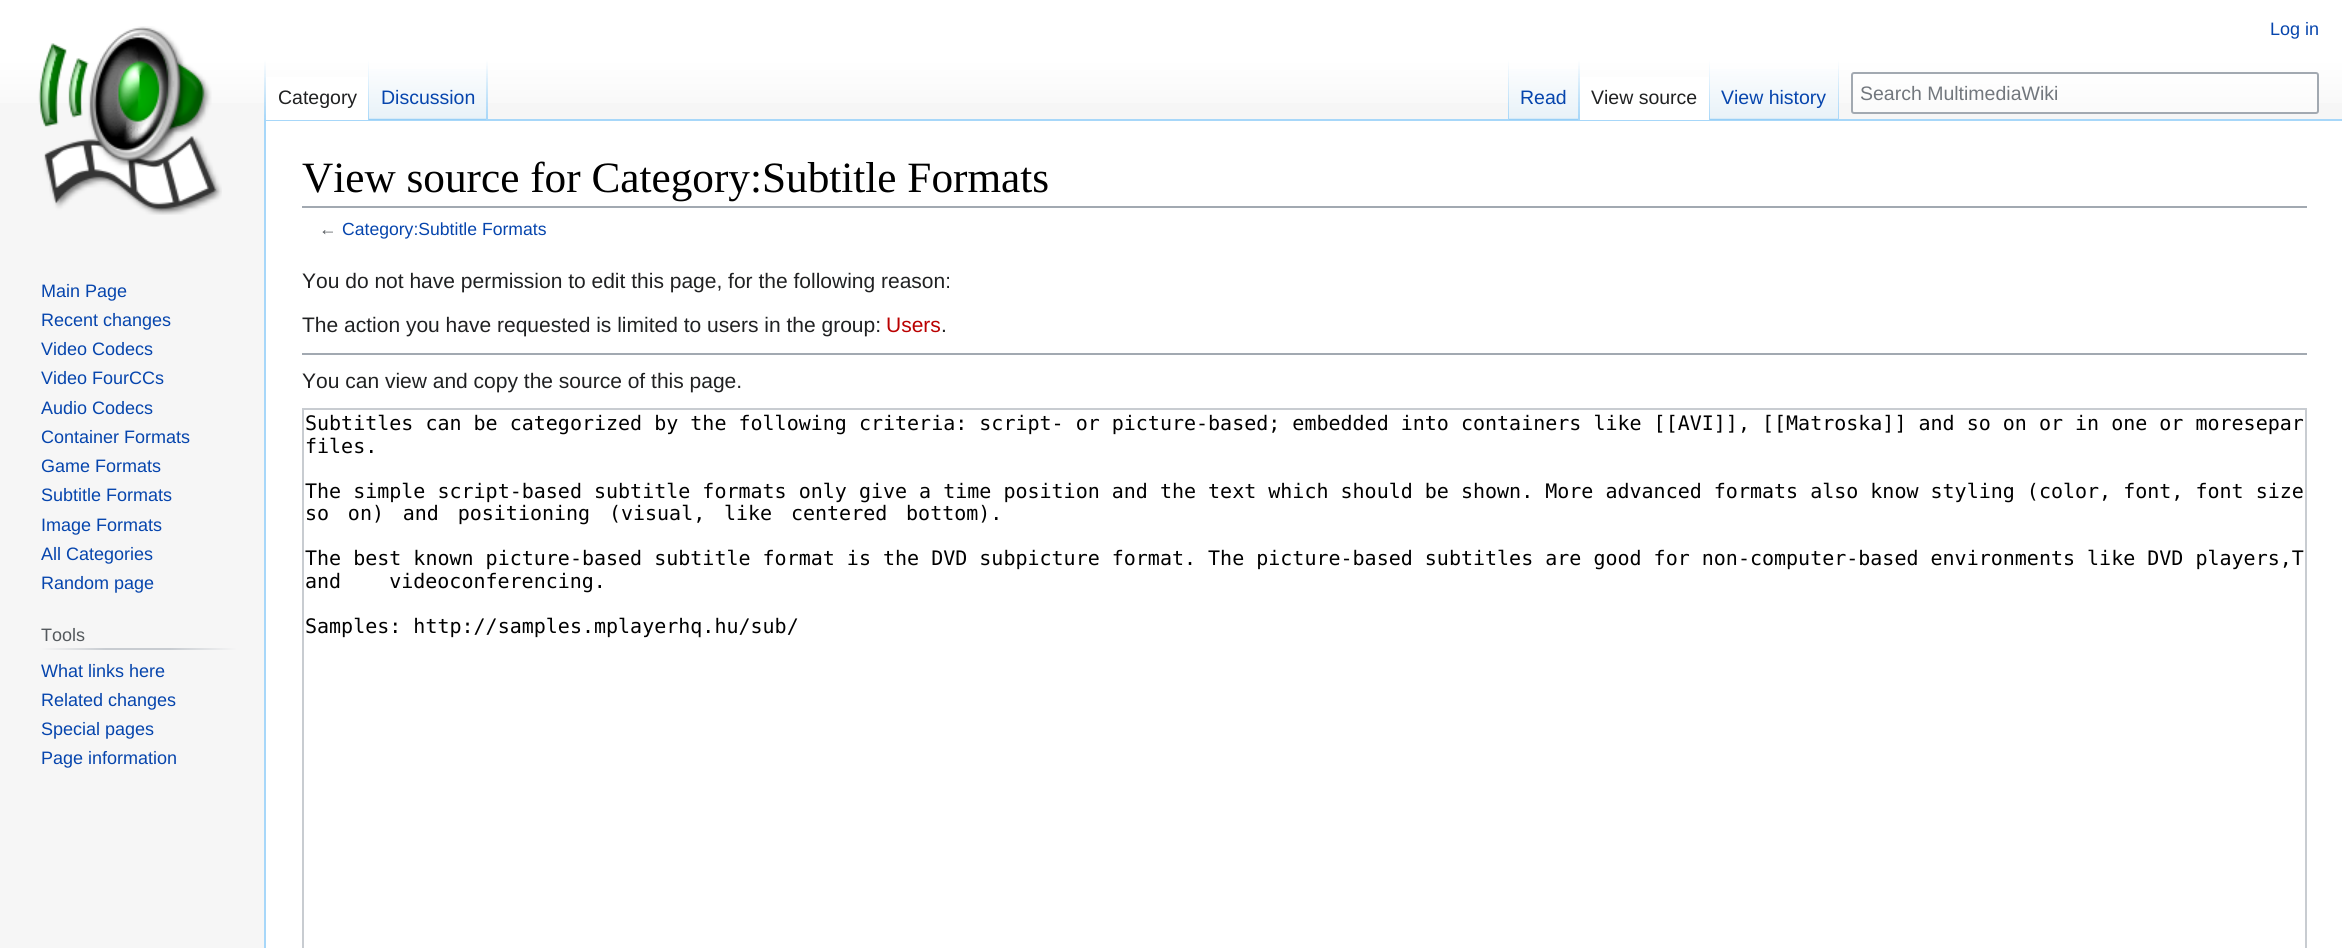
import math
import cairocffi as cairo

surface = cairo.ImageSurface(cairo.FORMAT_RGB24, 2342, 948)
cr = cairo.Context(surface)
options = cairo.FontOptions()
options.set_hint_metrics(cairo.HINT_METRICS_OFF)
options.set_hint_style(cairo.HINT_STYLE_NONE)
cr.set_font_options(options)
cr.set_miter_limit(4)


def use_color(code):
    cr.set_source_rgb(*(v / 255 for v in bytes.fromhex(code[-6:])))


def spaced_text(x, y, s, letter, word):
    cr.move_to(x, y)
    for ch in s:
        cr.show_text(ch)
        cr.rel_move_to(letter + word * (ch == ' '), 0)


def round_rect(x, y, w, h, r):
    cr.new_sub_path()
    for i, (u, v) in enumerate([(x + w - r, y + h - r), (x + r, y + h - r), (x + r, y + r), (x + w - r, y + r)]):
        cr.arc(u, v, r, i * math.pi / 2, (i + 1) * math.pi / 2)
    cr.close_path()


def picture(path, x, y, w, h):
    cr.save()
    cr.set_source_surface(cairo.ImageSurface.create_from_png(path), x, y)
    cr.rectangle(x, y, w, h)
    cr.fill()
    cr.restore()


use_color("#f6f6f6")
cr.paint()
gradient = cairo.LinearGradient(1172, 0, 1172, 120)
gradient.add_color_stop_rgba(0.5, 1, 1, 1, 1)
gradient.add_color_stop_rgba(1, 0.965, 0.965, 0.965, 1)
cr.set_source(gradient)
cr.rectangle(0, 0, 2342, 103)
cr.fill()
cr.select_font_face("Liberation Sans")
cr.set_font_size(18)
use_color("#0645ad")
cr.move_to(2270, 35)
cr.show_text("Log in")
use_color("#a7d7f9")
cr.rectangle(264, 119, 2078, 2)
cr.fill()
cr.rectangle(264, 119, 2, 829)
cr.fill()
gradient = cairo.LinearGradient(265, 60, 265, 120)
gradient.add_color_stop_rgba(0, 0.655, 0.843, 0.976, 0)
gradient.add_color_stop_rgba(1, 0.655, 0.843, 0.976, 1)
cr.set_source(gradient)
cr.rectangle(264, 60, 2, 60)
cr.fill()
use_color("#ffffff")
cr.rectangle(266, 77, 102, 43)
cr.fill()
gradient = cairo.LinearGradient(368, 60, 368, 120)
gradient.add_color_stop_rgba(0, 1, 1, 1, 1)
gradient.add_color_stop_rgba(1, 0.655, 0.843, 0.976, 1)
cr.set_source(gradient)
cr.rectangle(368, 60, 1, 60)
cr.fill()
cr.set_font_size(19.5)
use_color("#202122")
cr.move_to(278, 104)
cr.show_text("Category")
gradient = cairo.LinearGradient(428, 120, 428, 60)
gradient.add_color_stop_rgba(0, 0.467, 0.757, 0.965, 1)
gradient.add_color_stop_rgba(0.03, 0.91, 0.949, 0.973, 1)
gradient.add_color_stop_rgba(1, 1, 1, 1, 1)
cr.set_source(gradient)
cr.rectangle(369, 69, 119, 51)
cr.fill()
gradient = cairo.LinearGradient(487, 60, 487, 120)
gradient.add_color_stop_rgba(0, 0.655, 0.843, 0.976, 0)
gradient.add_color_stop_rgba(1, 0.655, 0.843, 0.976, 1)
cr.set_source(gradient)
cr.rectangle(486, 60, 2, 60)
cr.fill()
use_color("#0645ad")
cr.move_to(381, 104)
cr.show_text("Discussion")
gradient = cairo.LinearGradient(1508, 60, 1508, 120)
gradient.add_color_stop_rgba(0, 0.655, 0.843, 0.976, 0)
gradient.add_color_stop_rgba(1, 0.655, 0.843, 0.976, 1)
cr.set_source(gradient)
cr.rectangle(1508, 60, 1, 60)
cr.fill()
gradient = cairo.LinearGradient(1544, 120, 1544, 60)
gradient.add_color_stop_rgba(0, 0.467, 0.757, 0.965, 1)
gradient.add_color_stop_rgba(0.03, 0.91, 0.949, 0.973, 1)
gradient.add_color_stop_rgba(1, 1, 1, 1, 1)
cr.set_source(gradient)
cr.rectangle(1509, 69, 71, 51)
cr.fill()
gradient = cairo.LinearGradient(1579, 60, 1579, 120)
gradient.add_color_stop_rgba(0, 0.655, 0.843, 0.976, 0)
gradient.add_color_stop_rgba(1, 0.655, 0.843, 0.976, 1)
cr.set_source(gradient)
cr.rectangle(1578, 60, 2, 60)
cr.fill()
use_color("#0645ad")
cr.move_to(1520, 104)
cr.show_text("Read")
use_color("#ffffff")
cr.rectangle(1580, 77, 129, 43)
cr.fill()
gradient = cairo.LinearGradient(1709, 60, 1709, 120)
gradient.add_color_stop_rgba(0, 1, 1, 1, 1)
gradient.add_color_stop_rgba(1, 0.655, 0.843, 0.976, 1)
cr.set_source(gradient)
cr.rectangle(1709, 60, 1, 60)
cr.fill()
use_color("#202122")
cr.move_to(1591, 104)
cr.show_text("View source")
gradient = cairo.LinearGradient(1775, 120, 1775, 60)
gradient.add_color_stop_rgba(0, 0.467, 0.757, 0.965, 1)
gradient.add_color_stop_rgba(0.03, 0.91, 0.949, 0.973, 1)
gradient.add_color_stop_rgba(1, 1, 1, 1, 1)
cr.set_source(gradient)
cr.rectangle(1710, 69, 129, 51)
cr.fill()
gradient = cairo.LinearGradient(1838, 60, 1838, 120)
gradient.add_color_stop_rgba(0, 0.655, 0.843, 0.976, 0)
gradient.add_color_stop_rgba(1, 0.655, 0.843, 0.976, 1)
cr.set_source(gradient)
cr.rectangle(1838, 60, 1, 60)
cr.fill()
use_color("#0645ad")
cr.move_to(1721, 104)
cr.show_text("View history")
cr.set_source_rgba(1, 1, 1, 0.5)
round_rect(1852, 73, 466, 40, 2)
cr.fill_preserve()
use_color("#a2a9b1")
cr.stroke()
use_color("#72777d")
cr.move_to(1860, 100)
cr.show_text("Search MultimediaWiki")
picture("img1.png", 38, 26, 184, 189)
cr.set_font_size(18)
use_color("#0645ad")
cr.move_to(41, 297)
cr.show_text("Main Page")
cr.move_to(41, 326)
cr.show_text("Recent changes")
cr.move_to(41, 355)
cr.show_text("Video Codecs")
cr.move_to(41, 384)
cr.show_text("Video FourCCs")
cr.move_to(41, 414)
cr.show_text("Audio Codecs")
cr.move_to(41, 443)
cr.show_text("Container Formats")
cr.move_to(41, 472)
cr.show_text("Game Formats")
cr.move_to(41, 501)
cr.show_text("Subtitle Formats")
cr.move_to(41, 531)
cr.show_text("Image Formats")
cr.move_to(41, 560)
cr.show_text("All Categories")
cr.move_to(41, 589)
cr.show_text("Random page")
gradient = cairo.LinearGradient(41, 649, 237, 649)
gradient.add_color_stop_rgba(0, 0.965, 0.965, 0.965, 1)
gradient.add_color_stop_rgba(0.33, 0.784, 0.8, 0.82, 1)
gradient.add_color_stop_rgba(0.66, 0.784, 0.8, 0.82, 1)
gradient.add_color_stop_rgba(1, 0.965, 0.965, 0.965, 1)
cr.set_source(gradient)
cr.rectangle(41, 648, 196, 2)
cr.fill()
use_color("#54595d")
cr.move_to(41, 641)
cr.show_text("Tools")
use_color("#0645ad")
cr.move_to(41, 677)
cr.show_text("What links here")
cr.move_to(41, 706)
cr.show_text("Related changes")
cr.move_to(41, 735)
cr.show_text("Special pages")
cr.move_to(41, 764)
cr.show_text("Page information")
use_color("#ffffff")
cr.rectangle(266, 121, 2076, 827)
cr.fill()
use_color("#a2a9b1")
cr.rectangle(302, 206, 2005, 2)
cr.fill()
cr.select_font_face("Liberation Serif")
cr.set_font_size(43.25)
use_color("#000000")
cr.move_to(302, 192)
cr.show_text("View source for Category:Subtitle Formats")
cr.select_font_face("Liberation Sans")
cr.set_font_size(17.6)
use_color("#54595d")
cr.move_to(319, 235)
cr.show_text("←")
use_color("#0645ad")
cr.move_to(342, 235)
cr.show_text("Category:Subtitle Formats")
cr.set_font_size(21)
use_color("#202122")
cr.move_to(302, 288)
cr.show_text("You do not have permission to edit this page, for the following reason:")
cr.move_to(302, 332)
cr.show_text("The action you have requested is limited to users in the group:")
use_color("#ba0000")
cr.move_to(886, 332)
cr.show_text("Users")
use_color("#202122")
cr.move_to(941, 332)
cr.show_text(".")
use_color("#a2a9b1")
cr.rectangle(302, 353, 2005, 2)
cr.fill()
use_color("#202122")
cr.move_to(302, 388)
cr.show_text("You can view and copy the source of this page.")
cr.rectangle(303, 409, 2003, 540)
use_color("#c8ccd1")
cr.stroke()
cr.select_font_face("DejaVu Sans Mono")
cr.set_font_size(20)
use_color("#000000")
cr.move_to(305, 430)
cr.show_text("Subtitles can be categorized by the following criteria: script- or picture-based; embedded into containers like [[AVI]], [[Matroska]] and so on or in one or moresepar")
cr.move_to(305, 453)
cr.show_text("files.")
cr.move_to(305, 498)
cr.show_text("The simple script-based subtitle formats only give a time position and the text which should be shown. More advanced formats also know styling (color, font, font size")
spaced_text(305, 520, "so on) and positioning (visual, like centered bottom).", 0, 6.75)
cr.move_to(305, 565)
cr.show_text("The best known picture-based subtitle format is the DVD subpicture format. The picture-based subtitles are good for non-computer-based environments like DVD players,T")
spaced_text(305, 588, "and videoconferencing.", 0, 36)
cr.move_to(305, 633)
cr.show_text("Samples: http://samples.mplayerhq.hu/sub/")
surface.write_to_png("result.png")
